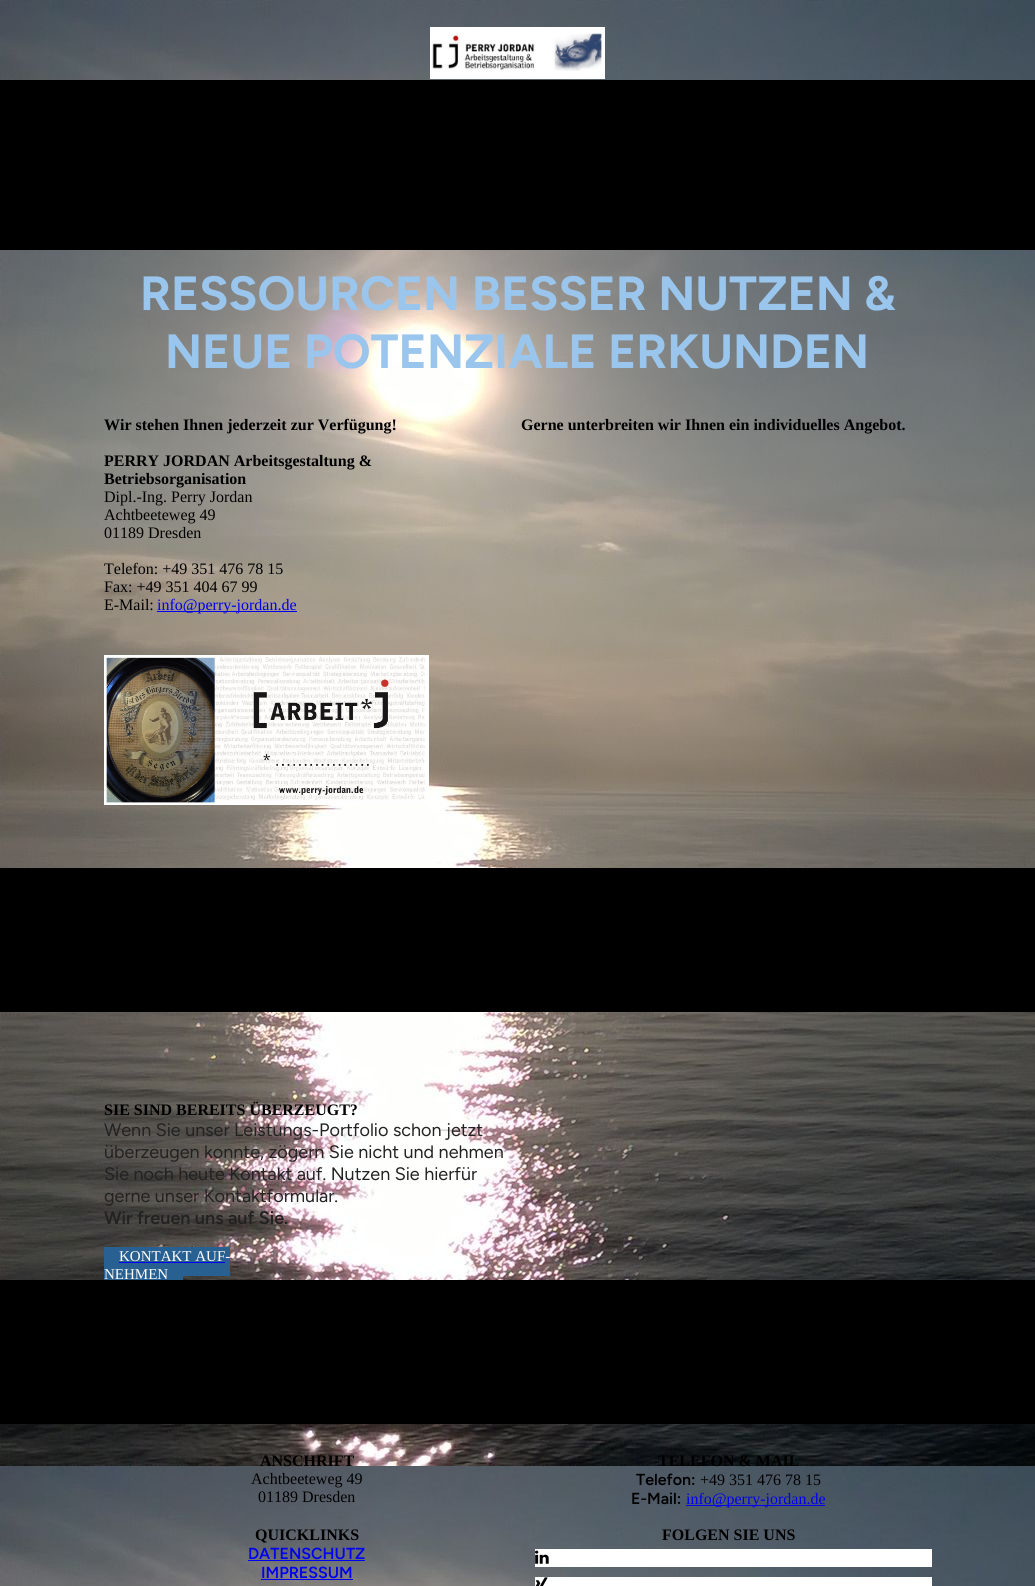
import math
import cairocffi as cairo

surface = cairo.ImageSurface(cairo.FORMAT_RGB24, 1035, 1586)
cr = cairo.Context(surface)
options = cairo.FontOptions()
options.set_hint_metrics(cairo.HINT_METRICS_OFF)
options.set_hint_style(cairo.HINT_STYLE_NONE)
cr.set_font_options(options)
cr.set_miter_limit(4)


def use_color(code):
    cr.set_source_rgb(*(v / 255 for v in bytes.fromhex(code[-6:])))


def picture(path, x, y, w, h):
    cr.save()
    cr.set_source_surface(cairo.ImageSurface.create_from_png(path), x, y)
    cr.rectangle(x, y, w, h)
    cr.fill()
    cr.restore()


use_color("#ffffff")
cr.paint()
picture("img1.png", 0, 0, 1035, 1586)
picture("img2.png", 430, 27, 175, 52)
use_color("#000000")
cr.rectangle(0, 80, 1035, 170)
cr.fill()
cr.select_font_face("Figtree", cairo.FONT_SLANT_NORMAL, cairo.FONT_WEIGHT_BOLD)
cr.set_font_size(48)
use_color("#9ac5ec")
cr.move_to(140, 310)
cr.show_text("RESSOURCEN BESSER NUTZEN &")
cr.move_to(165, 368)
cr.show_text("NEUE POTENZIALE ERKUNDEN")
cr.select_font_face("Liberation Serif", cairo.FONT_SLANT_NORMAL, cairo.FONT_WEIGHT_BOLD)
cr.set_font_size(16)
use_color("#000000")
cr.move_to(104, 430)
cr.show_text("Wir stehen Ihnen jederzeit zur Verfügung!")
cr.move_to(104, 466)
cr.show_text("PERRY JORDAN Arbeitsgestaltung &")
cr.move_to(104, 484)
cr.show_text("Betriebsorganisation")
cr.select_font_face("Liberation Serif")
cr.move_to(104, 502)
cr.show_text("Dipl.-Ing. Perry Jordan")
cr.move_to(104, 520)
cr.show_text("Achtbeeteweg 49")
cr.move_to(104, 538)
cr.show_text("01189 Dresden")
cr.move_to(104, 574)
cr.show_text("Telefon: +49 351 476 78 15")
cr.move_to(104, 592)
cr.show_text("Fax: +49 351 404 67 99")
cr.move_to(104, 610)
cr.show_text("E-Mail:")
use_color("#0000ee")
cr.rectangle(157, 611, 140, 1)
cr.fill()
cr.move_to(157, 610)
cr.show_text("info@perry-jordan.de")
picture("img3.png", 104, 655, 325, 150)
cr.select_font_face("Liberation Serif", cairo.FONT_SLANT_NORMAL, cairo.FONT_WEIGHT_BOLD)
use_color("#000000")
cr.move_to(521, 430)
cr.show_text("Gerne unterbreiten wir Ihnen ein individuelles Angebot.")
cr.rectangle(0, 868, 1035, 144)
cr.fill()
cr.move_to(104, 1115)
cr.show_text("SIE SIND BEREITS ÜBERZEUGT?")
cr.select_font_face("Figtree")
cr.set_font_size(18)
use_color("#222222")
cr.move_to(104, 1136)
cr.show_text("Wenn Sie unser Leistungs-Portfolio schon jetzt")
cr.move_to(104, 1158)
cr.show_text("überzeugen konnte, zögern Sie nicht und nehmen")
cr.move_to(104, 1180)
cr.show_text("Sie noch heute Kontakt auf. Nutzen Sie hierfür")
cr.move_to(104, 1202)
cr.show_text("gerne unser Kontaktformular.")
cr.select_font_face("Figtree SemiBold")
cr.move_to(104, 1224)
cr.show_text("Wir freuen uns auf Sie.")
use_color("#296092")
cr.rectangle(104, 1247, 126, 29)
cr.fill()
cr.new_path()
cr.move_to(104, 1254)
cr.line_to(178, 1254)
cr.curve_to(181, 1254, 183, 1256, 183, 1259)
cr.line_to(183, 1283)
cr.line_to(104, 1283)
cr.close_path()
cr.fill()
cr.select_font_face("Liberation Serif")
cr.set_font_size(15)
use_color("#fefefe")
cr.move_to(119, 1261)
cr.show_text("KONTAKT AUF-")
use_color("#0000ee")
cr.rectangle(119, 1262, 106, 1)
cr.fill()
use_color("#fefefe")
cr.move_to(104, 1279)
cr.show_text("NEHMEN")
use_color("#000000")
cr.rectangle(0, 1280, 1035, 144)
cr.fill()
cr.select_font_face("Liberation Serif", cairo.FONT_SLANT_NORMAL, cairo.FONT_WEIGHT_BOLD)
cr.set_font_size(16)
cr.move_to(260, 1466)
cr.show_text("ANSCHRIFT")
cr.select_font_face("Liberation Serif")
cr.move_to(251, 1484)
cr.show_text("Achtbeeteweg 49")
cr.move_to(258, 1502)
cr.show_text("01189 Dresden")
cr.select_font_face("Liberation Serif", cairo.FONT_SLANT_NORMAL, cairo.FONT_WEIGHT_BOLD)
cr.move_to(658, 1466)
cr.show_text("TELEFON & MAIL")
cr.select_font_face("Figtree SemiBold")
cr.move_to(636, 1485)
cr.show_text("Telefon:")
cr.select_font_face("Liberation Serif")
cr.move_to(700, 1485)
cr.show_text("+49 351 476 78 15")
cr.select_font_face("Figtree SemiBold")
cr.move_to(631, 1504)
cr.show_text("E-Mail:")
use_color("#0000ee")
cr.rectangle(686, 1505, 139, 1)
cr.fill()
cr.select_font_face("Liberation Serif")
cr.move_to(686, 1504)
cr.show_text("info@perry-jordan.de")
cr.select_font_face("Liberation Serif", cairo.FONT_SLANT_NORMAL, cairo.FONT_WEIGHT_BOLD)
use_color("#000000")
cr.move_to(255, 1540)
cr.show_text("QUICKLINKS")
cr.select_font_face("Figtree SemiBold")
use_color("#0000ee")
cr.move_to(248, 1559)
cr.show_text("DATENSCHUTZ")
cr.rectangle(248, 1560, 117, 1)
cr.fill()
cr.move_to(261, 1578)
cr.show_text("IMPRESSUM")
cr.rectangle(261, 1579, 92, 1)
cr.fill()
cr.select_font_face("Liberation Serif", cairo.FONT_SLANT_NORMAL, cairo.FONT_WEIGHT_BOLD)
use_color("#000000")
cr.move_to(662, 1540)
cr.show_text("FOLGEN SIE UNS")
use_color("#ffffff")
cr.rectangle(535, 1549, 397, 18)
cr.fill()
picture("img4.png", 535, 1550, 14, 14)
cr.rectangle(535, 1577, 397, 9)
cr.fill()
picture("img5.png", 535, 1577, 13, 9)
surface.write_to_png("result.png")
